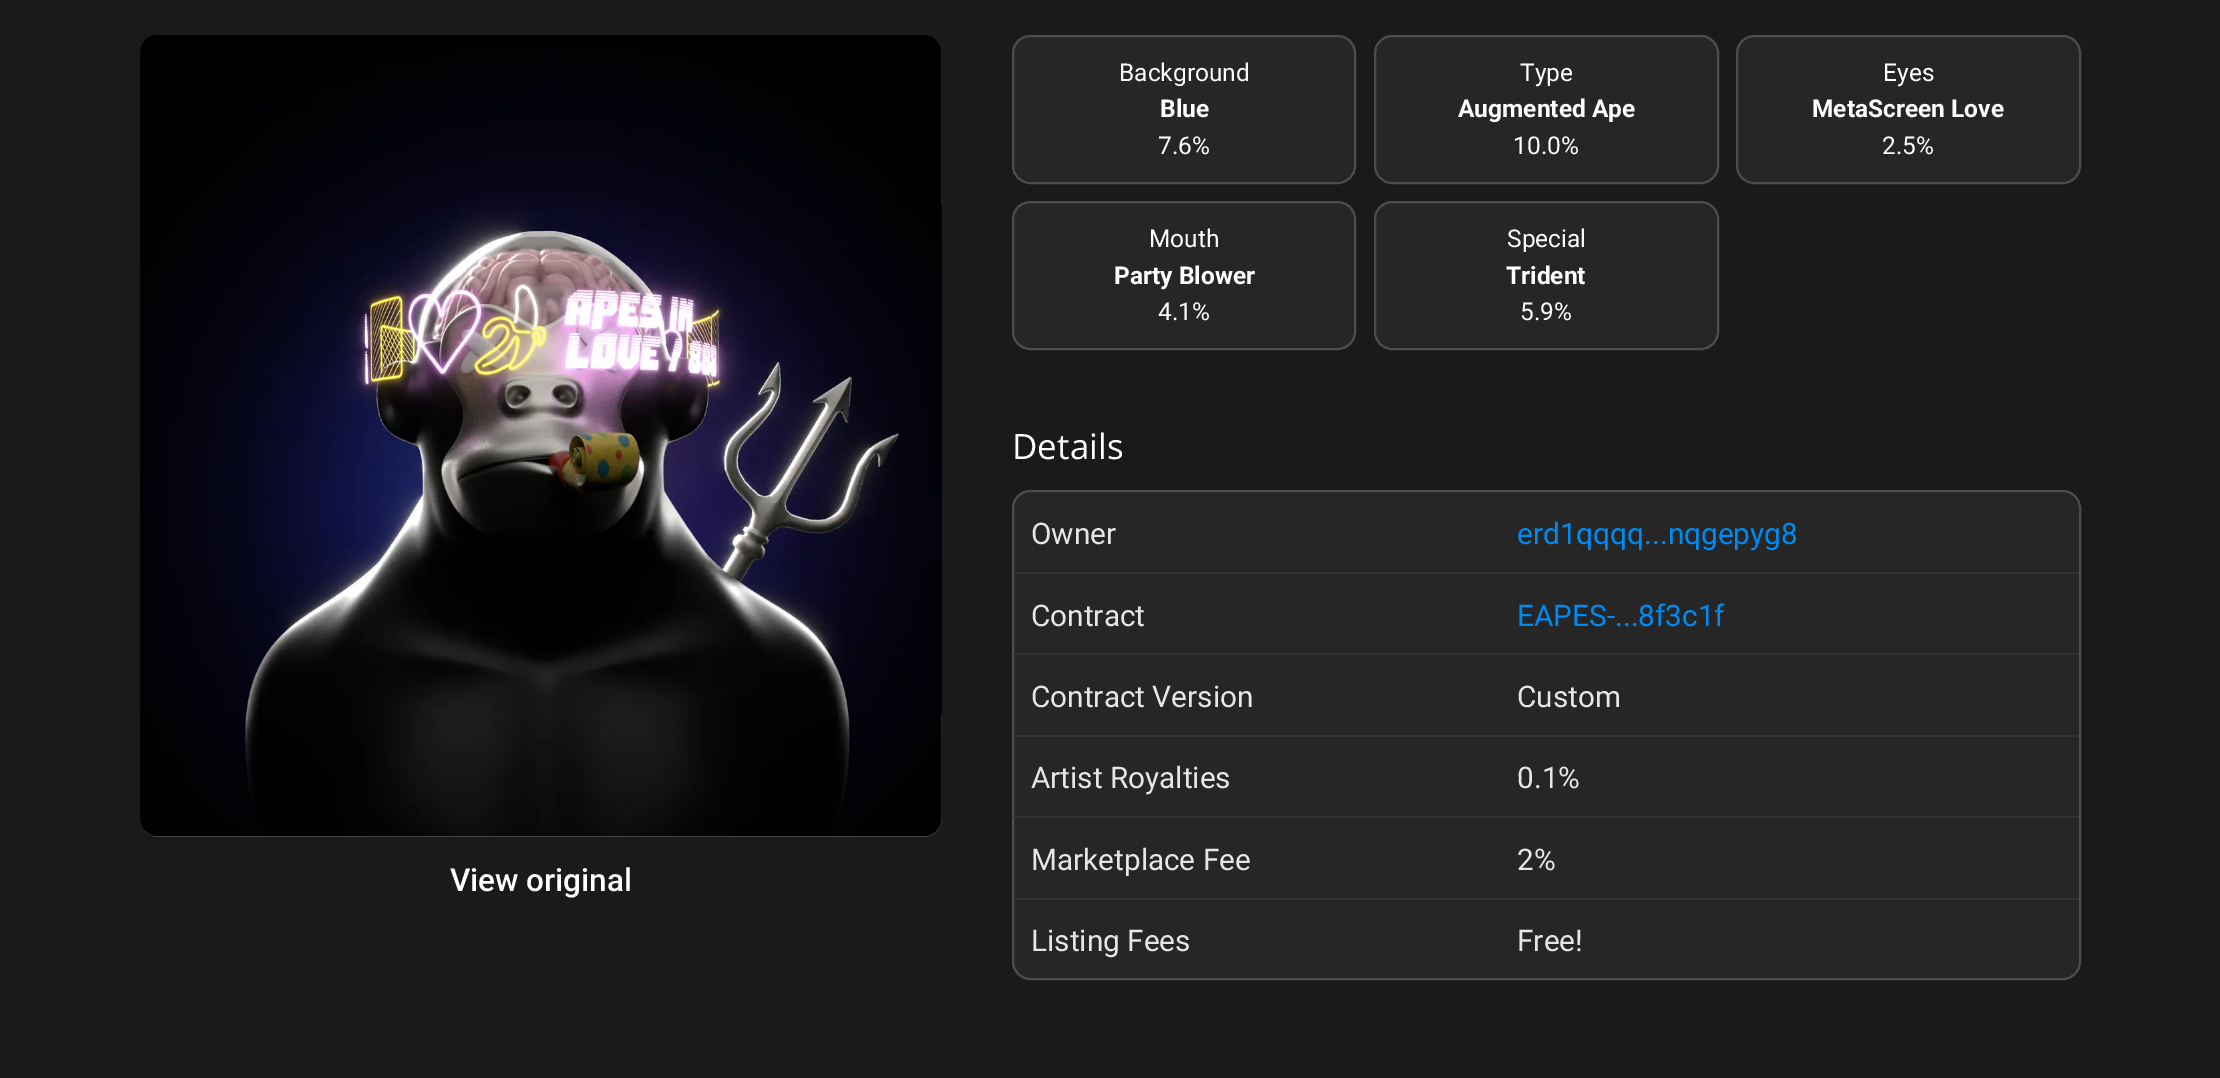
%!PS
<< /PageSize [2220 1078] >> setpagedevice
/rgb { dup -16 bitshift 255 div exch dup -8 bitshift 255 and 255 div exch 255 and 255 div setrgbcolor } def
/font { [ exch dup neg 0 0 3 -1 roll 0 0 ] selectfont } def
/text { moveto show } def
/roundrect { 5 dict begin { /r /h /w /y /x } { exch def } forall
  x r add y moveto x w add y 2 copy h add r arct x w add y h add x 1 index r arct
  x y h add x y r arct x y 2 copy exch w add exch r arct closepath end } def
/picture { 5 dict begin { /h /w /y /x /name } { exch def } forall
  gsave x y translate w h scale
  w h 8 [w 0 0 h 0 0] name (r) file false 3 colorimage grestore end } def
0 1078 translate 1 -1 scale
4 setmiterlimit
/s1 { /Roboto-Medium 31.5 font 16#FFFFFF rgb } def
/s2 { /Roboto-Regular 24.5 font 16#FFFFFF rgb } def
/s3 { /Roboto-Bold 24.5 font 16#FFFFFF rgb } def
/s4 { /OpenSans-Regular 35 font 16#FFFFFF rgb } def
/s5 { /Roboto-Regular 29.75 font 16#E6E6E6 rgb } def
/s6 { /Roboto-Regular 29.75 font 16#008BF3 rgb } def
16#1A1A1A rgb
0 0 2220 1078 rectfill
16#444444 rgb
140 35 802 802 18 roundrect fill
(pic1.raw) 140 35 802 801 picture
s1
(View original) 450 891 text
16#262626 rgb
1013 36 342 147 17 roundrect gsave fill grestore
16#4D4D4D rgb
2 setlinewidth
stroke
s2
(Background) 1119 81 text
s3
(Blue) 1160 117 text
s2
(7.6%) 1158 154 text
16#262626 rgb
1375 36 343 147 17 roundrect gsave fill grestore
16#4D4D4D rgb
stroke
s2
(Type) 1520 81 text
s3
(Augmented Ape) 1458 117 text
s2
(10.0%) 1513 154 text
16#262626 rgb
1737 36 343 147 17 roundrect gsave fill grestore
16#4D4D4D rgb
stroke
s2
(Eyes) 1883 81 text
s3
(MetaScreen Love) 1812 117 text
s2
(2.5%) 1882 154 text
16#262626 rgb
1013 202 342 147 17 roundrect gsave fill grestore
16#4D4D4D rgb
stroke
s2
(Mouth) 1149 247 text
s3
(Party Blower) 1114 284 text
s2
(4.1%) 1158 320 text
16#262626 rgb
1375 202 343 147 17 roundrect gsave fill grestore
16#4D4D4D rgb
stroke
s2
(Special) 1507 247 text
s3
(Trident) 1506 284 text
s2
(5.9%) 1520 320 text
s4
(Details) 1012 459 text
16#262626 rgb
1013 491 1067 488 17 roundrect gsave fill grestore
16#4D4D4D rgb
stroke
16#333333 rgb
1013 572 1066 2 rectfill
s5
(Owner) 1031 544 text
s6
(erd1qqqq...nqgepyg8) 1517 544 text
16#333333 rgb
1013 653 1066 2 rectfill
s5
(Contract) 1031 626 text
s6
(EAPES-...8f3c1f) 1517 626 text
16#333333 rgb
1013 735 1066 2 rectfill
s5
(Contract Version) 1031 707 text
(Custom) 1517 707 text
16#333333 rgb
1013 816 1066 2 rectfill
s5
(Artist Royalties) 1031 788 text
(0.1%) 1517 788 text
16#333333 rgb
1013 898 1066 2 rectfill
s5
(Marketplace Fee) 1031 870 text
(2%) 1517 870 text
(Listing Fees) 1031 951 text
(Free!) 1517 951 text
showpage
